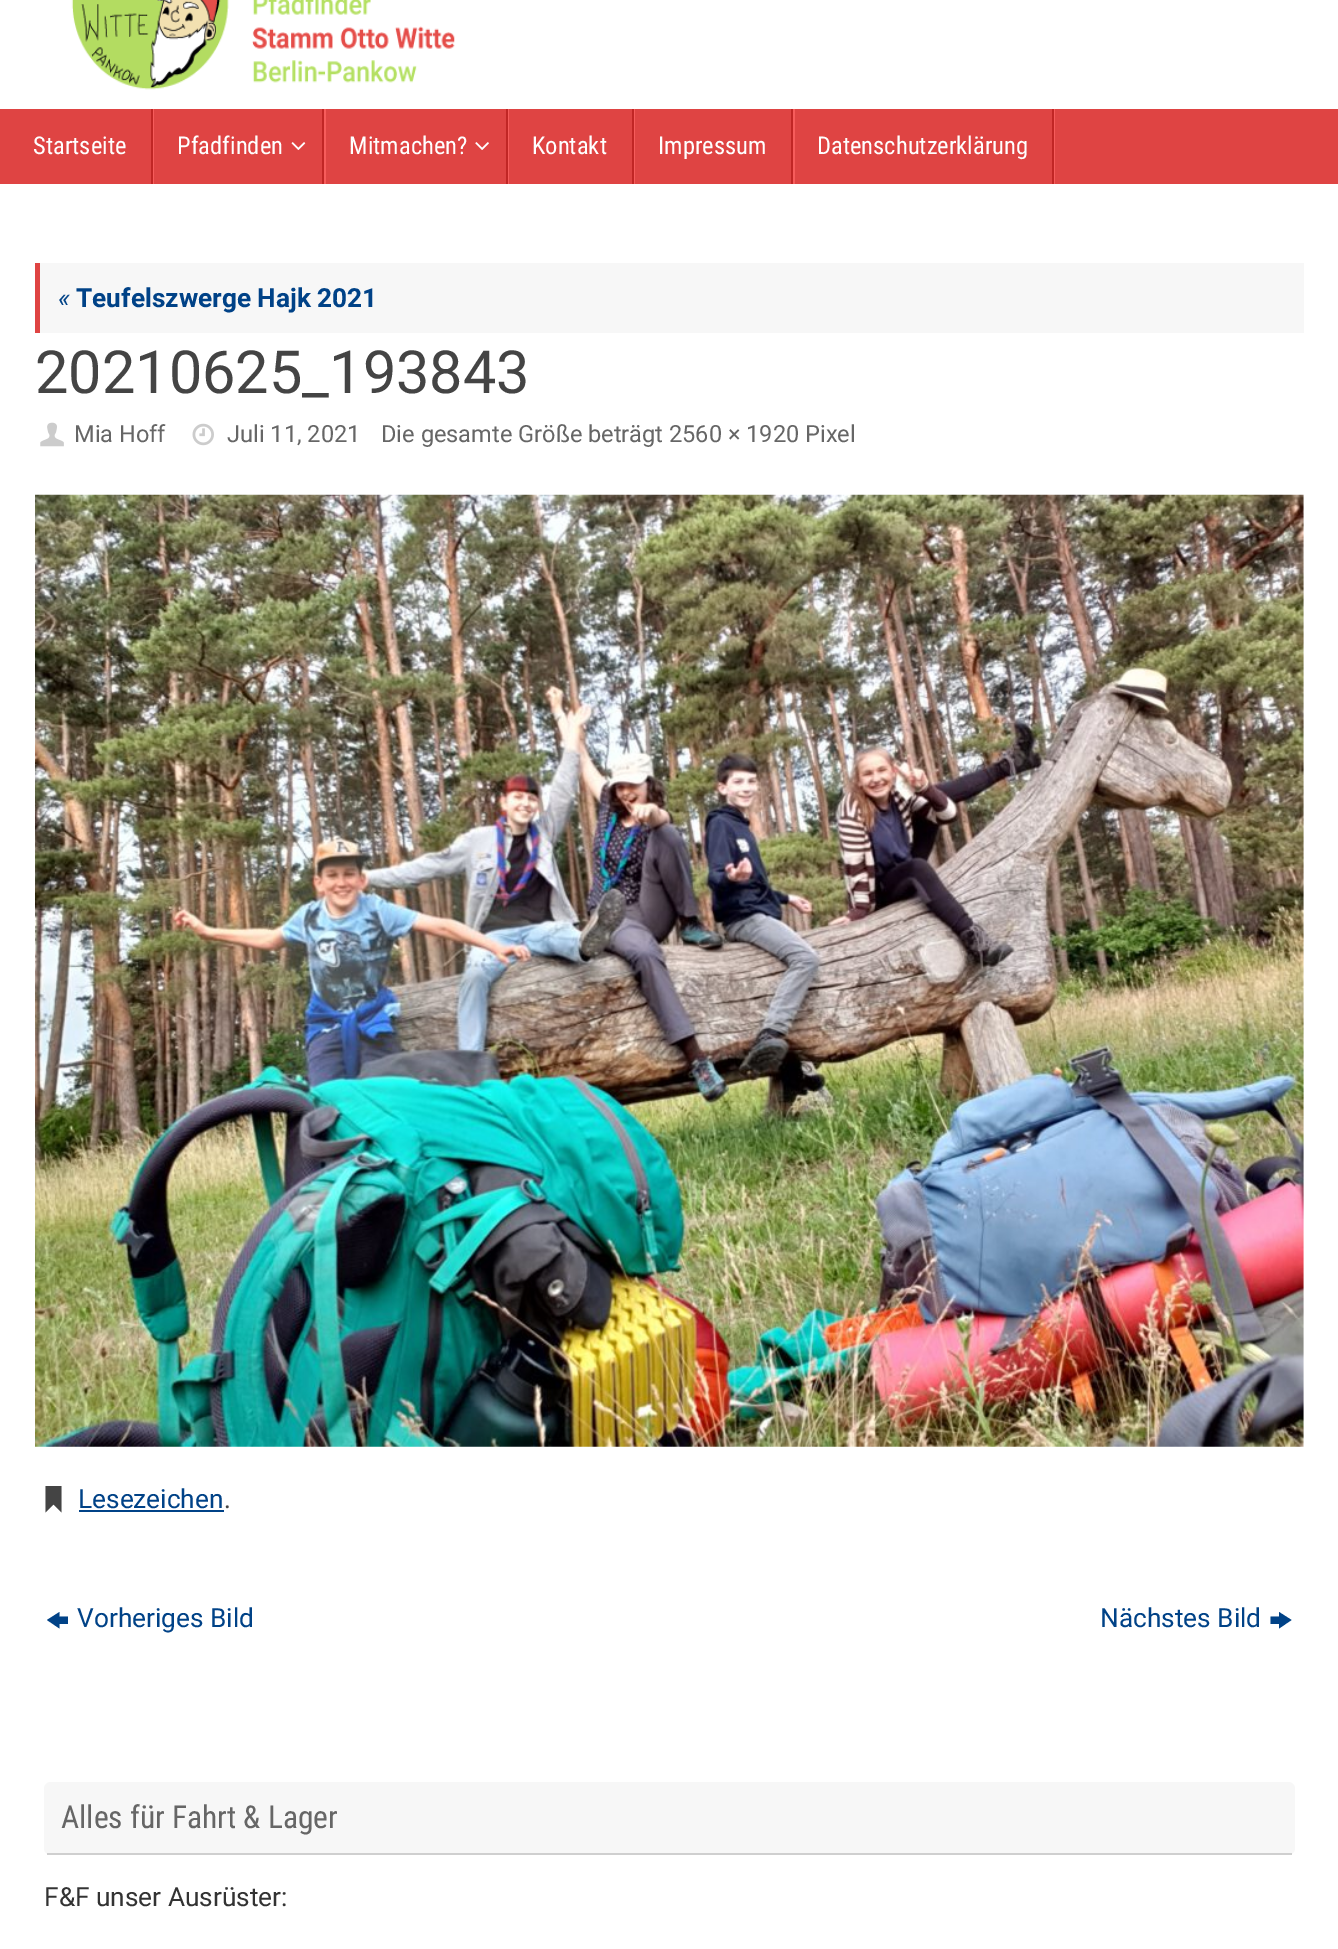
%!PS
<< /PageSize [1338 1949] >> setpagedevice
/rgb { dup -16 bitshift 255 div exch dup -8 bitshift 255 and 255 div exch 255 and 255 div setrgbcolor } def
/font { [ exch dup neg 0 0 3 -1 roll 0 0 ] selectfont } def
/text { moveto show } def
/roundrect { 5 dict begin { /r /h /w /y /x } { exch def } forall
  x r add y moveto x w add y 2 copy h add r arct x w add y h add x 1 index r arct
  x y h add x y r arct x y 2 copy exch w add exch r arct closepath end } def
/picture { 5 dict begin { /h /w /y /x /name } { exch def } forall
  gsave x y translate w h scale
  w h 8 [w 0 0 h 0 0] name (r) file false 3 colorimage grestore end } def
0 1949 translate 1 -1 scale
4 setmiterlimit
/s1 { /RobotoCondensed-Regular 24.5 font 16#FFFFFF rgb } def
/s2 { /Roboto-Italic 26.25 font 16#004287 rgb } def
/s3 { /Roboto-Bold 26.25 font 16#004287 rgb } def
/s4 { /Roboto-Regular 59.5 font 16#444444 rgb } def
/s5 { /Roboto-Regular 23.6 font 16#666666 rgb } def
/s6 { /Roboto-Regular 26.25 font 16#004287 rgb } def
/s7 { /Roboto-Regular 26.25 font 16#444444 rgb } def
/s8 { /RobotoCondensed-Regular 31.5 font 16#666666 rgb } def
/s9 { /Roboto-Regular 26.25 font 16#333333 rgb } def
16#FFFFFF rgb
0 0 1338 1949 rectfill
(pic1.raw) 71 0 384 90 picture
16#DF4443 rgb
0 109 1338 75 rectfill
16#F75C5B rgb
11 184 moveto 154 184 lineto 154 109 lineto 152 109 lineto 152 184 lineto closepath fill
16#C12625 rgb
151 109 2 75 rectfill
s1
(Startseite) 33 154 text
16#F75C5B rgb
154 184 moveto 326 184 lineto 326 109 lineto 324 109 lineto 324 184 lineto closepath fill
16#C12625 rgb
322 109 2 75 rectfill
s1
(Pfadfinden) 177 154 text
(pic2.raw) 291 142 15 8 picture
16#F75C5B rgb
326 184 moveto 509 184 lineto 509 109 lineto 508 109 lineto 508 184 lineto closepath fill
16#C12625 rgb
506 109 2 75 rectfill
s1
(Mitmachen?) 349 154 text
(pic3.raw) 475 142 14 8 picture
16#F75C5B rgb
509 184 moveto 635 184 lineto 635 109 lineto 634 109 lineto 634 184 lineto closepath fill
16#C12625 rgb
632 109 2 75 rectfill
s1
(Kontakt) 532 154 text
16#F75C5B rgb
635 184 moveto 795 184 lineto 795 109 lineto 793 109 lineto 793 184 lineto closepath fill
16#C12625 rgb
791 109 2 75 rectfill
s1
(Impressum) 658 154 text
16#F75C5B rgb
795 184 moveto 1055 184 lineto 1055 109 lineto 1054 109 lineto 1054 184 lineto closepath fill
16#C12625 rgb
1052 109 2 75 rectfill
s1
(Datenschutzerklärung) 817 154 text
16#F7F7F7 rgb
40 263 1264 70 rectfill
16#DF4443 rgb
35 263 5 70 rectfill
s2
(«) 58 307 text
s3
(Teufelszwerge Hajk 2021) 76 307 text
s4
(20210625_193843) 35 393 text
(pic4.raw) 40 422 24 25 picture
s5
(Mia Hoff) 74 442 text
(pic5.raw) 192 423 22 23 picture
(Juli 11, 2021) 227 442 text
(Die gesamte Größe beträgt 2560 × 1920 Pixel) 381 442 text
(pic6.raw) 35 494 1269 953 picture
16#444444 rgb
45.5 1510 moveto 45.5 1486 lineto 61.5 1486 lineto 61.5 1512.5 lineto 53.5 1504.5 lineto 45.5 1512.5 lineto closepath fill
s6
(Lesezeichen) 78 1508 text
79 1510 145 2 rectfill
s7
(.) 224 1508 text
16#004287 rgb
47 1620 moveto 59.5 1612 lineto 59.5 1616.5 lineto 68 1616.5 lineto 68 1624 lineto 59.5 1624 lineto 59.5 1628.5 lineto closepath fill
(Vorheriges Bild) 77 1627 text
(Nächstes Bild) 1100 1627 text
1270.5 1624 moveto 1270.5 1616.5 lineto 1279 1616.5 lineto 1279 1612 lineto 1291.5 1620 lineto 1279 1628.5 lineto 1279 1624 lineto closepath fill
16#F7F7F7 rgb
44 1782 1251 73 7 roundrect fill
16#CFCFCF rgb
47 1853 1245 2 rectfill
s8
(Alles für Fahrt & Lager) 61 1828 text
s9
(F&F unser Ausrüster:) 44 1906 text
showpage
